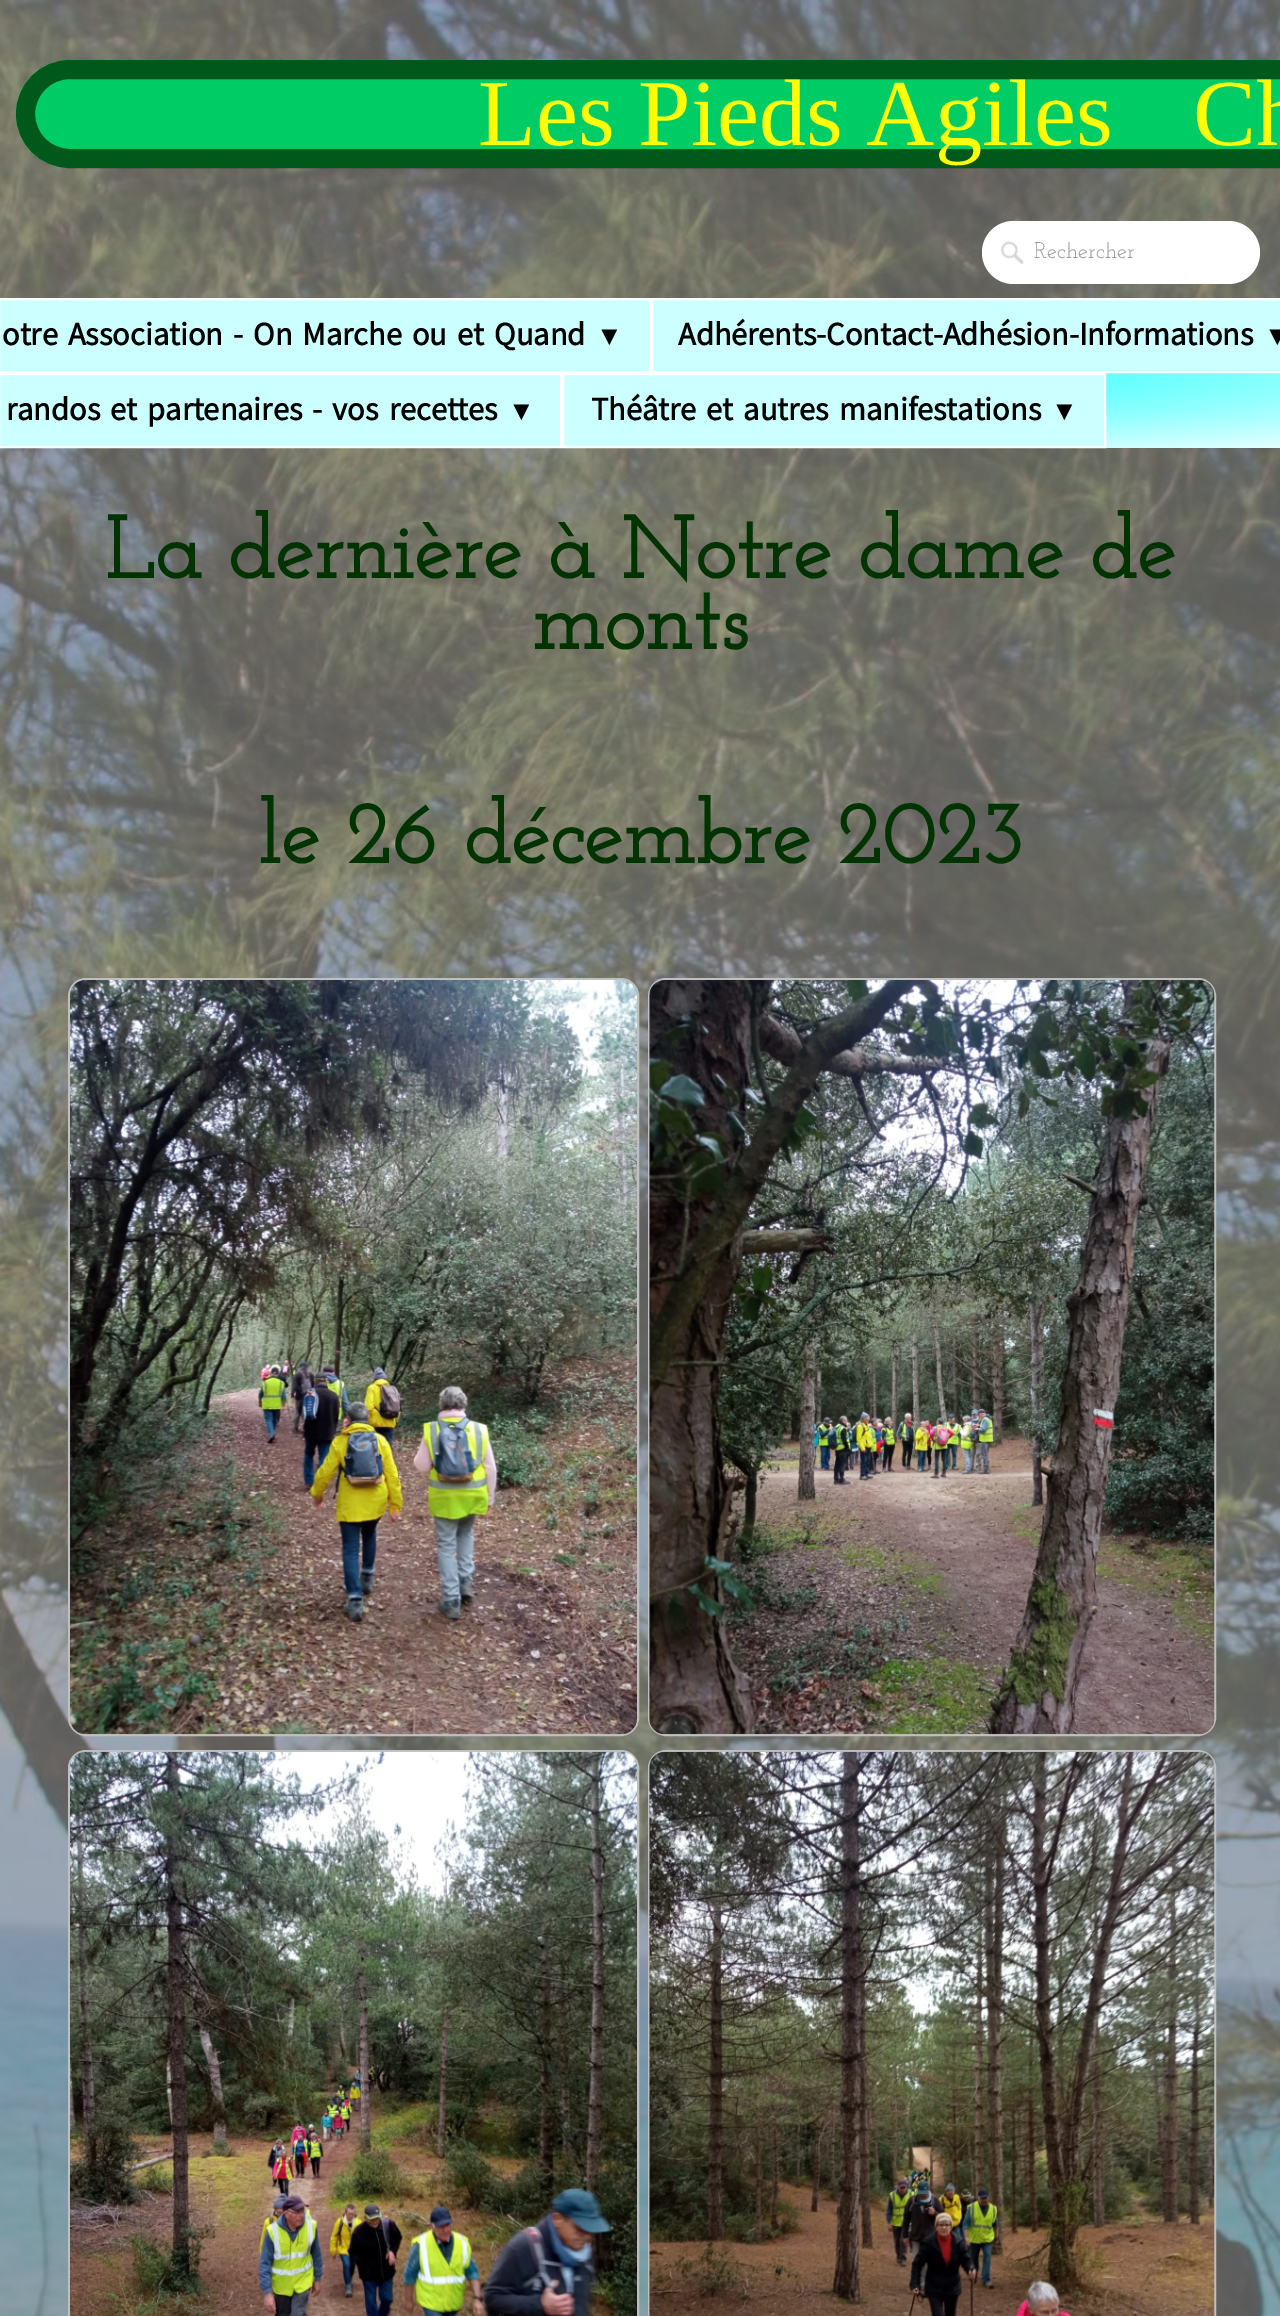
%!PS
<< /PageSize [1280 2316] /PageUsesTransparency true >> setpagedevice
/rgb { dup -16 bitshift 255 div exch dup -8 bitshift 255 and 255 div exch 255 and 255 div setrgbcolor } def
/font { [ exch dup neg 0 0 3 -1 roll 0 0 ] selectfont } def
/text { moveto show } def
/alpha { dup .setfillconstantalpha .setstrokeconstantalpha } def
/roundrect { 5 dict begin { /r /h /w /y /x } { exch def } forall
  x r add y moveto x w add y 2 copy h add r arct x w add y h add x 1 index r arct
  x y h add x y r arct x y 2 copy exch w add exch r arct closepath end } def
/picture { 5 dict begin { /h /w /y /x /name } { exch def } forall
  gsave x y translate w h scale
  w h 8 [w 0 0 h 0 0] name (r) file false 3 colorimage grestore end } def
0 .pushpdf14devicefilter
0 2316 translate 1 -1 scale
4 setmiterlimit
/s1 { /LiberationSerif-Regular 94.5 font 16#FFFF0A rgb } def
/s2 { /JosefinSlab-Thin 22.75 font 16#999999 rgb } def
/s3 { /Akatab-Bold 31.5 font 16#000000 rgb } def
/s4 { /LiberationSerif-Bold 27 font 16#000000 rgb } def
/s5 { /JosefinSlab-Bold 87.5 font 16#003300 rgb } def
16#FFFFFF rgb
0 0 1280 2316 rectfill
(pic1.raw) 0 0 1280 2316 picture
16#00CC66 rgb
70 60 moveto 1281 60 lineto 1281 168 lineto 70 168 lineto 40 168 16 144 16 114 curveto 16 84 40 60 70 60 curveto closepath fill
0.75 alpha
16#003300 rgb
19 setlinewidth
25.5 69.5 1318 89 44.5 roundrect stroke
1 alpha
s1
(Les Pieds Agiles) 478 145 text
(Ch) 1193 145 text
16#FFFFFF rgb
982 221 278 63 31.5 roundrect fill
(pic2.raw) 1001 241 23 24 picture
gsave
1034 242 219 22 rectclip
s2
(Rechercher) 1034 258 text
grestore
gsave 1106 373 moveto 1280 373 lineto 1280 448 lineto 1106 448 lineto closepath clip newpath 641 373 translate 1188 106 scale
<< /ShadingType 3 /ColorSpace /DeviceRGB /Coords [0 0 0 0 0 1] /Extend [true true] /Function << /FunctionType 2 /Domain [0 1] /C0 [0 1 1] /C1 [1 1 1] /N 1 >> >> shfill grestore
16#CCFFFF rgb
-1 299 moveto 650 299 lineto 650 372 lineto -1 372 lineto closepath gsave fill grestore
16#FFFFFF rgb
2 setlinewidth
stroke
s3
(otre Association - On Marche ou et Quand) 2 345 text
s4
(▼) 596 345 text
16#CCFFFF rgb
652 299 moveto 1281 299 lineto 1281 372 lineto 652 372 lineto closepath gsave fill grestore
16#FFFFFF rgb
stroke
s3
(Adhérents-Contact-Adhésion-Informations) 678 345 text
s4
(▼) 1264 345 text
16#CCFFFF rgb
-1 374 moveto 561 374 lineto 561 447 lineto -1 447 lineto closepath gsave fill grestore
16#FFFFFF rgb
stroke
s3
(randos et partenaires - vos recettes) 6 420 text
s4
(▼) 508 420 text
16#CCFFFF rgb
563 374 moveto 1105 374 lineto 1105 447 lineto 563 447 lineto closepath gsave fill grestore
16#FFFFFF rgb
stroke
s3
(Théâtre et autres manifestations) 591 420 text
s4
(▼) 1051 420 text
s5
(La dernière à Notre dame de) 105 578 text
(monts) 532 649 text
(le 26 décembre 2023) 258 863 text
16#BFBFBF rgb
69 979 569 756 17 roundrect stroke
(pic3.raw) 70 980 567 755 picture
69 1751 569 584 17 roundrect stroke
(pic4.raw) 70 1751 567 565 picture
649 979 566 756 17 roundrect stroke
(pic5.raw) 649 980 566 755 picture
649 1751 566 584 17 roundrect stroke
(pic6.raw) 649 1751 566 565 picture
.poppdf14devicefilter showpage
